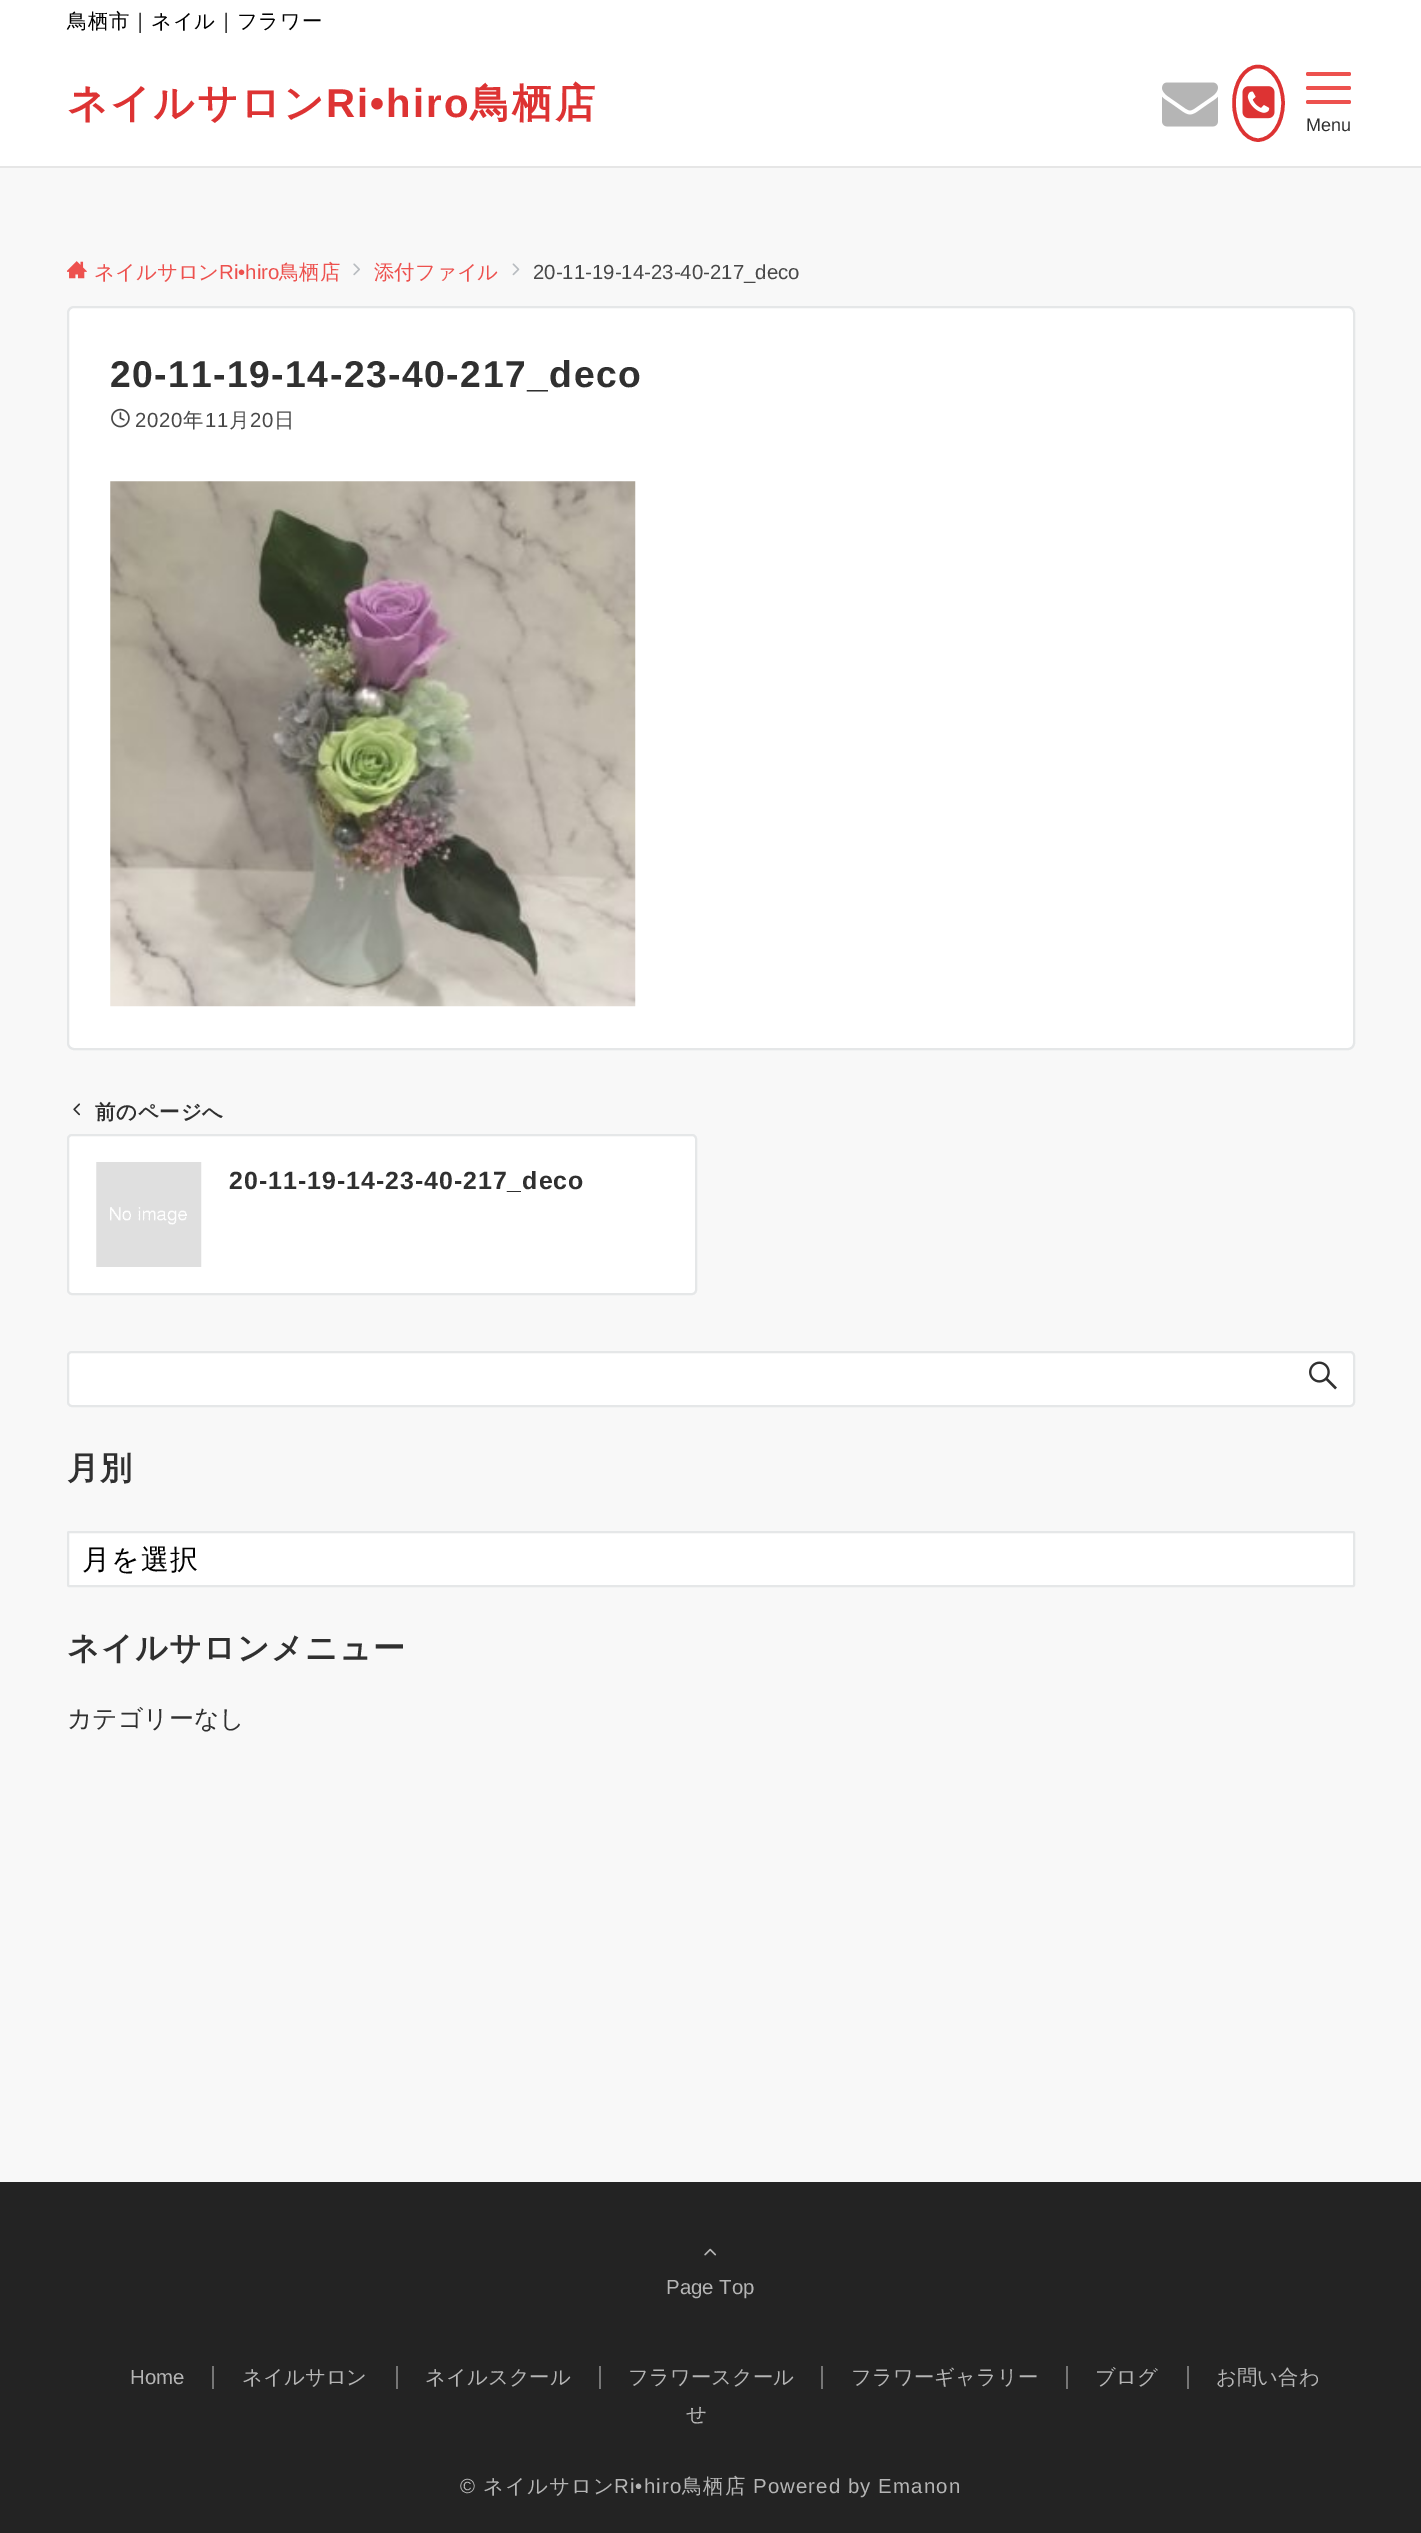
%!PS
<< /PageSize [1421 2533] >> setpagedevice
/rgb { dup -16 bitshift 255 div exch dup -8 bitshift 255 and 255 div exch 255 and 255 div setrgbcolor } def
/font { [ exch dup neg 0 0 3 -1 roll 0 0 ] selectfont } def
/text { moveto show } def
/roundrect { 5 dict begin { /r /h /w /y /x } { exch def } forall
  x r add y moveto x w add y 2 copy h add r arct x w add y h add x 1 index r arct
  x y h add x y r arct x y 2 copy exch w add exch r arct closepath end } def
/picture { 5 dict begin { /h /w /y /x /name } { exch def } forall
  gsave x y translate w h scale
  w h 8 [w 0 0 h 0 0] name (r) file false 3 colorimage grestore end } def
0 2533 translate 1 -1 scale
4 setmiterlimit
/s1 { /LiberationSans-Regular 18 font 16#303030 rgb } def
/s2 { /WenQuanYiZenHei-Medium 20.4 font 16#ED514E rgb } def
/s3 { /LiberationSans-Regular 20.4 font 16#ED514E rgb } def
/s4 { /LiberationSans-Regular 20.4 font 16#484848 rgb } def
/s5 { /WenQuanYiZenHei-Medium 24.9 font 16#303030 rgb } def
/s6 { /LiberationSans-Regular 20.4 font 16#B5B5B5 rgb } def
/s7 { /WenQuanYiZenHei-Medium 20.4 font 16#B5B5B5 rgb } def
16#F8F8F8 rgb
0 0 1421 2533 rectfill
16#FFFFFF rgb
0 0 1421 166 rectfill
/WenQuanYiZenHei-Medium 20.4 font
16#000000 rgb
67 28 moveto 0.75 0 (鳥栖市｜ネイル｜フラワー) ashow
16#E6E6E6 rgb
0 166 1421 2 rectfill
/WenQuanYiZenHei-Bold 40.25 font
16#DD3333 rgb
67 117 moveto 2 0 (ネイルサロン) ashow
/LiberationSans-Bold 40.25 font
326 117 moveto 2 0 (Ri•hiro) ashow
/WenQuanYiZenHei-Bold 40.25 font
470 117 moveto 2 0 (鳥栖店) ashow
(pic1.raw) 1162 82 56 45 picture
3.5 setlinewidth
1258 66.5 moveto 1272 66.5 1283 83 1283 103 curveto 1283 123.5 1272 140 1258 140 curveto 1244.5 140 1234 123.5 1234 103 curveto 1234 83 1244.5 66.5 1258 66.5 curveto closepath stroke
(pic2.raw) 1242 86 33 33 picture
16#ED514E rgb
1306 72 45 4 2 roundrect fill
1306 86 45 4 2 roundrect fill
1306 100 45 4 2 roundrect fill
s1
(Menu) 1306 131 text
(pic3.raw) 67 261 20 18 picture
s2
(ネイルサロン) 94 279 text
s3
(Ri•hiro) 219 279 text
s2
(鳥栖店) 279 279 text
(pic4.raw) 353 263 7 13 picture
(添付ファイル) 374 279 text
(pic5.raw) 512 263 8 13 picture
s4
(20-11-19-14-23-40-217_deco) 533 279 text
16#FFFFFF rgb
68 307 1286 742 6 roundrect gsave fill grestore
16#E5E7E8 rgb
2 setlinewidth
stroke
/LiberationSans-Bold 37.3 font
16#303030 rgb
110 387 moveto 1.5 0 (20-11-19-14-23-40-217_deco) ashow
(pic6.raw) 111 408 19 20 picture
/LiberationSans-Regular 20.4 font
16#484848 rgb
135 427 moveto 0.75 0 (2020) ashow
/WenQuanYiZenHei-Medium 20.4 font
183 427 moveto 0.75 0 (年) ashow
/LiberationSans-Regular 20.4 font
205 427 moveto 0.75 0 (11) ashow
/WenQuanYiZenHei-Medium 20.4 font
229 427 moveto 0.75 0 (月) ashow
/LiberationSans-Regular 20.4 font
250 427 moveto 0.75 0 (20) ashow
/WenQuanYiZenHei-Medium 20.4 font
274 427 moveto 0.75 0 (日) ashow
(pic7.raw) 110 481 526 526 picture
16#FFFFFF rgb
68 1135 628 159 4 roundrect gsave fill grestore
16#E5E7E8 rgb
stroke
(pic8.raw) 73 1103 7 13 picture
/WenQuanYiZenHei-Bold 20.4 font
16#303030 rgb
95 1119 moveto 0.75 0 (前のページへ) ashow
(pic9.raw) 96 1162 106 105 picture
/LiberationSans-Bold 24.9 font
229 1189 moveto 1 0 (20-11-19-14-23-40-217_deco) ashow
16#FFFFFF rgb
68 1352 1286 54 4 roundrect gsave fill grestore
16#E5E7E8 rgb
stroke
(pic10.raw) 1309 1361 28 29 picture
/WenQuanYiZenHei-Bold 32 font
16#303030 rgb
67 1479 moveto 1.25 0 (月別) ashow
16#FFFFFF rgb
68 1532 1286 54 1 roundrect gsave fill grestore
16#E5E7E8 rgb
stroke
/WenQuanYiZenHei-Medium 28 font
16#000000 rgb
82 1569 moveto 1.1 0 (月を選択) ashow
/WenQuanYiZenHei-Bold 32 font
16#303030 rgb
67 1659 moveto 1.25 0 (ネイルサロンメニュー) ashow
s5
(カテゴリーなし) 67 1727 text
16#232323 rgb
0 2182 1421 351 rectfill
(pic11.raw) 704 2248 13 8 picture
s6
(Page Top) 666 2294 text
(Home) 130 2384 text
16#757575 rgb
212 2366 2 23 rectfill
s7
(ネイルサロン) 242 2384 text
16#757575 rgb
396 2366 2 23 rectfill
s7
(ネイルスクール) 425 2384 text
16#757575 rgb
599 2366 2 23 rectfill
s7
(フラワースクール) 628 2384 text
16#757575 rgb
821 2366 2 23 rectfill
s7
(フラワーギャラリー) 851 2384 text
16#757575 rgb
1066 2366 2 23 rectfill
s7
(ブログ) 1095 2384 text
16#757575 rgb
1187 2366 2 23 rectfill
s7
(お問い合わ) 1216 2384 text
(せ) 686 2421 text
/LiberationSans-Regular 20.4 font
460 2493 moveto 1.1 0 (©) ashow
/WenQuanYiZenHei-Medium 20.4 font
483 2493 moveto 1.1 0 (ネイルサロン) ashow
/LiberationSans-Regular 20.4 font
614 2493 moveto 1.1 0 (Ri•hiro) ashow
/WenQuanYiZenHei-Medium 20.4 font
682 2493 moveto 1.1 0 (鳥栖店) ashow
/LiberationSans-Regular 20.4 font
753 2493 moveto 1.1 0 (Powered by Emanon) ashow
showpage
